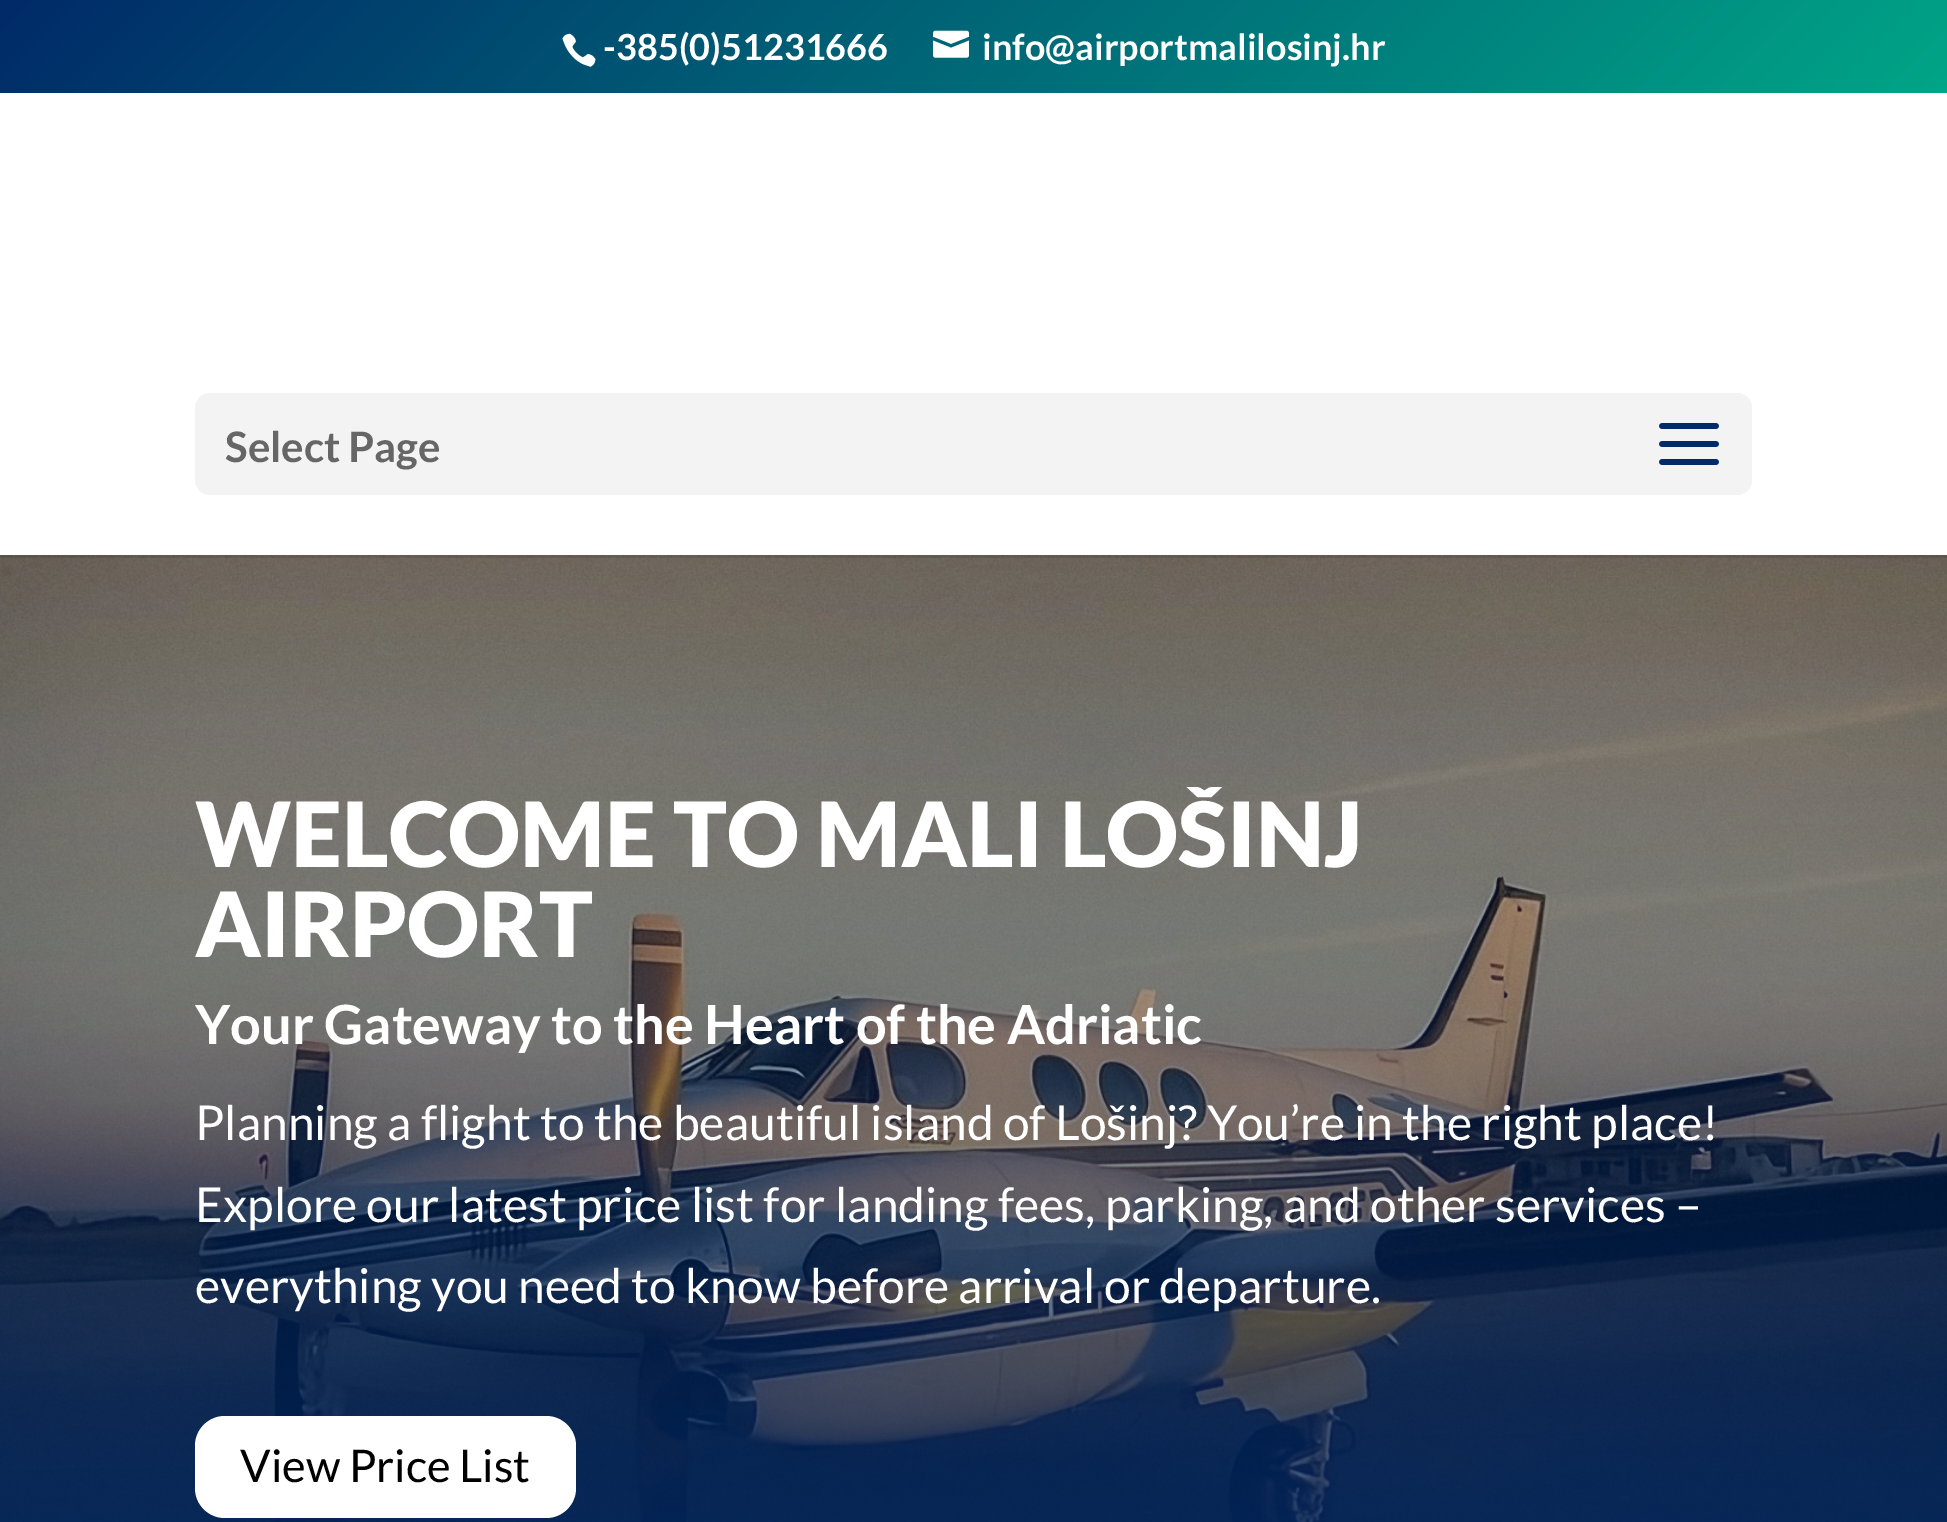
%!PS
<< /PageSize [1947 1522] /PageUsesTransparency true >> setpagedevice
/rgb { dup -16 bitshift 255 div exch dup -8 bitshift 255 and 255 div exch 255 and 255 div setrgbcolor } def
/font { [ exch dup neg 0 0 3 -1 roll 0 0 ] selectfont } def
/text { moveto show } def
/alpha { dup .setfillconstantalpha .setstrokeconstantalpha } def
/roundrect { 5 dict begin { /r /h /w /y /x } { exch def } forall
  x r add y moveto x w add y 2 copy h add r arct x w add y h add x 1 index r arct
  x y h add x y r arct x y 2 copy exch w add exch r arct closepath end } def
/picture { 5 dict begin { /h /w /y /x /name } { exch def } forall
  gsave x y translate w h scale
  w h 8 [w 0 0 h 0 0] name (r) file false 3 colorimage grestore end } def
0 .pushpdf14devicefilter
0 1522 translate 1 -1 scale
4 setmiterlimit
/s1 { /Lato-Bold 36 font 16#FFFFFF rgb } def
/s2 { /Lato-Bold 42 font 16#666666 rgb } def
/s3 { /Lato-Black 90 font 16#FFFFFF rgb } def
/s4 { /Lato-Bold 54 font 16#FFFFFF rgb } def
/s5 { /Lato-Regular 48 font 16#FFFFFF rgb } def
/s6 { /Lato-Regular 45 font 16#000000 rgb } def
16#FFFFFF rgb
0 0 1947 1522 rectfill
gsave 0 0 moveto 1947 0 lineto 1947 93 lineto 0 93 lineto closepath clip newpath
<< /ShadingType 2 /ColorSpace /DeviceRGB /Coords [463 -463 1484 557] /Extend [true true] /Function << /FunctionType 2 /Domain [0 1] /C0 [0 0.165 0.408] /C1 [0 0.647 0.529] /N 1 >> >> shfill grestore
(pic1.raw) 562 33 34 34 picture
s1
(-385\(0\)51231666) 603 60 text
(pic2.raw) 933 30 36 28 picture
(info@airportmalilosinj.hr) 982 60 text
(pic4.raw) 0 555 1947 967 picture
0.1 alpha
16#000000 rgb
0 555 1947 3 rectfill
1 alpha
16#F3F3F3 rgb
195 393 1557 102 15 roundrect fill
s2
(Select Page) 225 462 text
(pic3.raw) 1659 423 60 42 picture
s3
(WELCOME TO MALI LOŠINJ) 195 867 text
(AIRPORT) 195 957 text
s4
(Your Gateway to the Heart of the Adriatic) 195 1044 text
s5
(Planning a flight to the beautiful island of Lošinj? You’re in the right place!) 195 1140 text
(Explore our latest price list for landing fees, parking, and other services –) 195 1222 text
(everything you need to know before arrival or departure.) 195 1303 text
195 1416 381 102 30 roundrect fill
s6
(View Price List) 240 1482 text
.poppdf14devicefilter showpage
